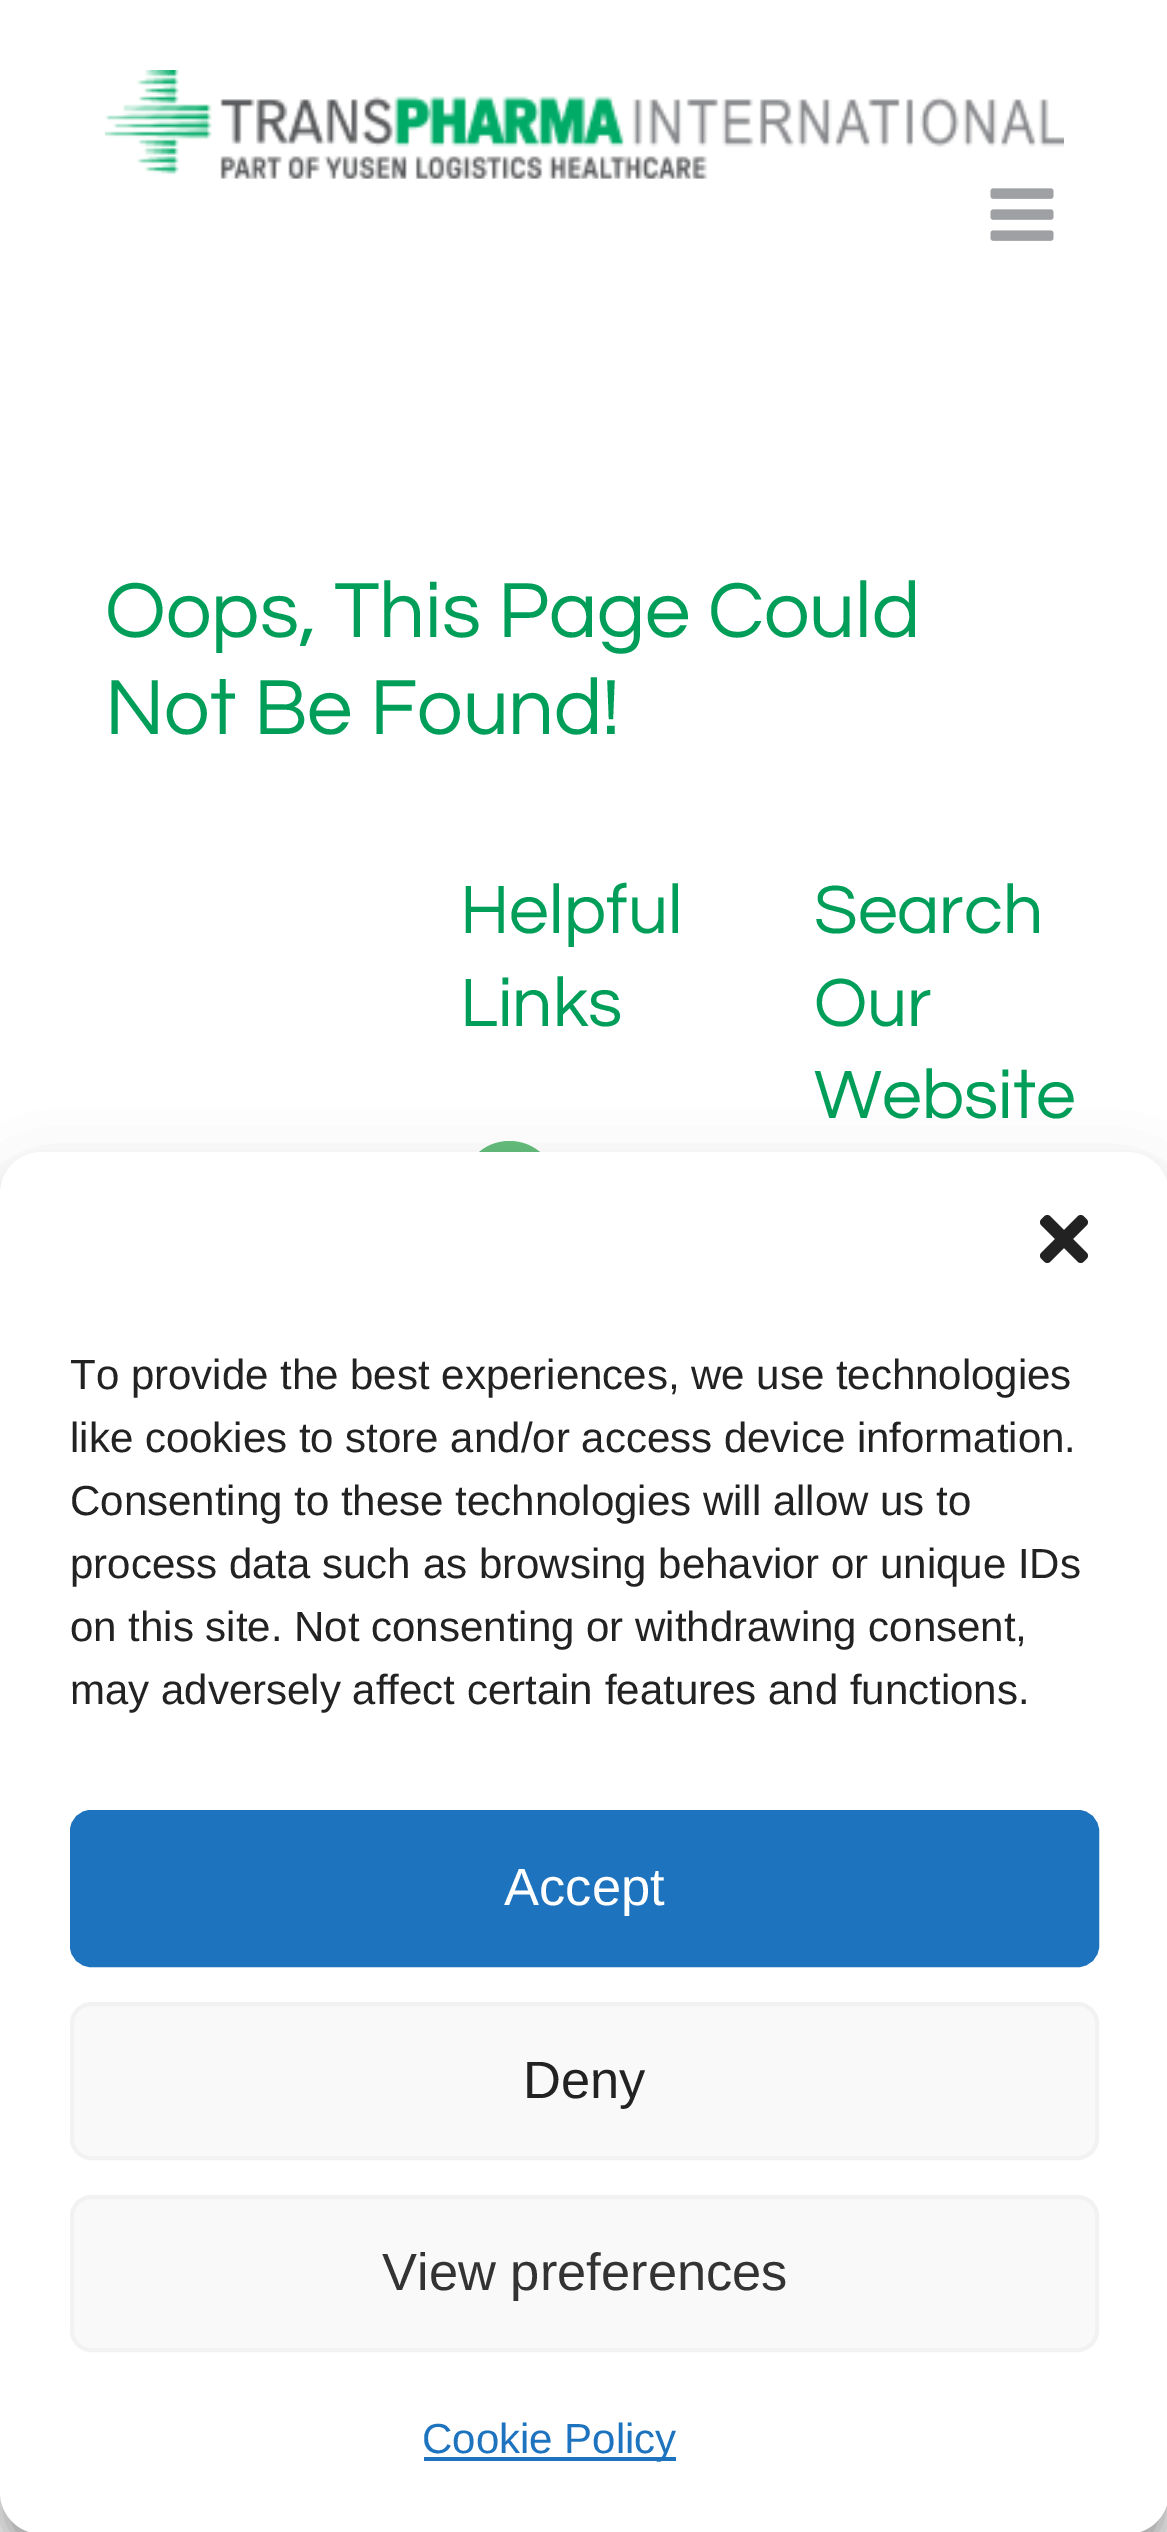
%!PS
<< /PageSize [1167 2532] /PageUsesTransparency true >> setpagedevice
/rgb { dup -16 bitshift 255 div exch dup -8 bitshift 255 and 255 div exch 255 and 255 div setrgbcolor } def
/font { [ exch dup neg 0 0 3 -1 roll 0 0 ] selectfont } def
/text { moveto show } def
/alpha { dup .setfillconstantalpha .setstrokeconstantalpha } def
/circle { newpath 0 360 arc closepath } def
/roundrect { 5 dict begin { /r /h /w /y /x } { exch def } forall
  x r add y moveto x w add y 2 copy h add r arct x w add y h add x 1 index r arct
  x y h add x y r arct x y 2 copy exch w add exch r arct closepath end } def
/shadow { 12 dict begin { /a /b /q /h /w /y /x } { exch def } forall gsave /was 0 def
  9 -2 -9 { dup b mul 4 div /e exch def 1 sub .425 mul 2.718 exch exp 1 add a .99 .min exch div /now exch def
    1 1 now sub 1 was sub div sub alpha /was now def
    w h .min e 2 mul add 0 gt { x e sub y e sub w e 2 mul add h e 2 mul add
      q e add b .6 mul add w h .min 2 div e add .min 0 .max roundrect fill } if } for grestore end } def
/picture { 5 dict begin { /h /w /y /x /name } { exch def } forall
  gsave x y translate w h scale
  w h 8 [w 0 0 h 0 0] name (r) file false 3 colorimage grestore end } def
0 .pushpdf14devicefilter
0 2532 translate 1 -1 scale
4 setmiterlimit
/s1 { /Questrial-Regular 81 font 16#009E59 rgb } def
/s2 { /Questrial-Regular 71 font 16#009E59 rgb } def
/s3 { /LiberationSans-Regular 42 font 16#222222 rgb } def
/s4 { /LiberationSans-Regular 52.5 font 16#FFFFFF rgb } def
/s5 { /LiberationSans-Regular 52.5 font 16#222222 rgb } def
/s6 { /LiberationSans-Regular 52.5 font 16#333333 rgb } def
/s7 { /LiberationSans-Regular 42 font 16#1E73BE rgb } def
16#FFFFFF rgb
0 0 1167 2532 rectfill
(pic1.raw) 105 70 959 109 picture
(pic2.raw) 990 188 64 53 picture
s1
(Oops, This Page Could) 105 637 text
(Not Be Found!) 105 734 text
s2
(Helpful) 460 933 text
(Links) 460 1026 text
16#65BC7B rgb
509.5 1188.5 47.5 circle fill
s2
(Search) 814 933 text
(Our) 814 1026 text
(Website) 814 1118 text
16#000000 rgb
0 1173 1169 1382 42 10.5 0.23 shadow
0 1187 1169 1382 42 35 0.19 shadow
16#FFFFFF rgb
0 1152 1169 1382 42 roundrect fill
(pic3.raw) 1039 1214 50 50 picture
s3
(To provide the best experiences, we use technologies) 70 1389 text
(like cookies to store and/or access device information.) 70 1452 text
(Consenting to these technologies will allow us to) 70 1515 text
(process data such as browsing behavior or unique IDs) 70 1578 text
(on this site. Not consenting or withdrawing consent,) 70 1641 text
(may adversely affect certain features and functions.) 70 1704 text
16#1E73BE rgb
72 1812 1025 153 19 roundrect gsave fill grestore
4 setlinewidth
stroke
s4
(Accept) 504 1905 text
16#F9F9F9 rgb
72 2004 1025 154 19 roundrect gsave fill grestore
16#F2F2F2 rgb
stroke
s5
(Deny) 523 2098 text
16#F9F9F9 rgb
72 2197 1025 153 19 roundrect gsave fill grestore
16#F2F2F2 rgb
stroke
s6
(View preferences) 382 2290 text
16#1E73BE rgb
424 2457 252 4 rectfill
s7
(Cookie Policy) 422 2453 text
.poppdf14devicefilter showpage
